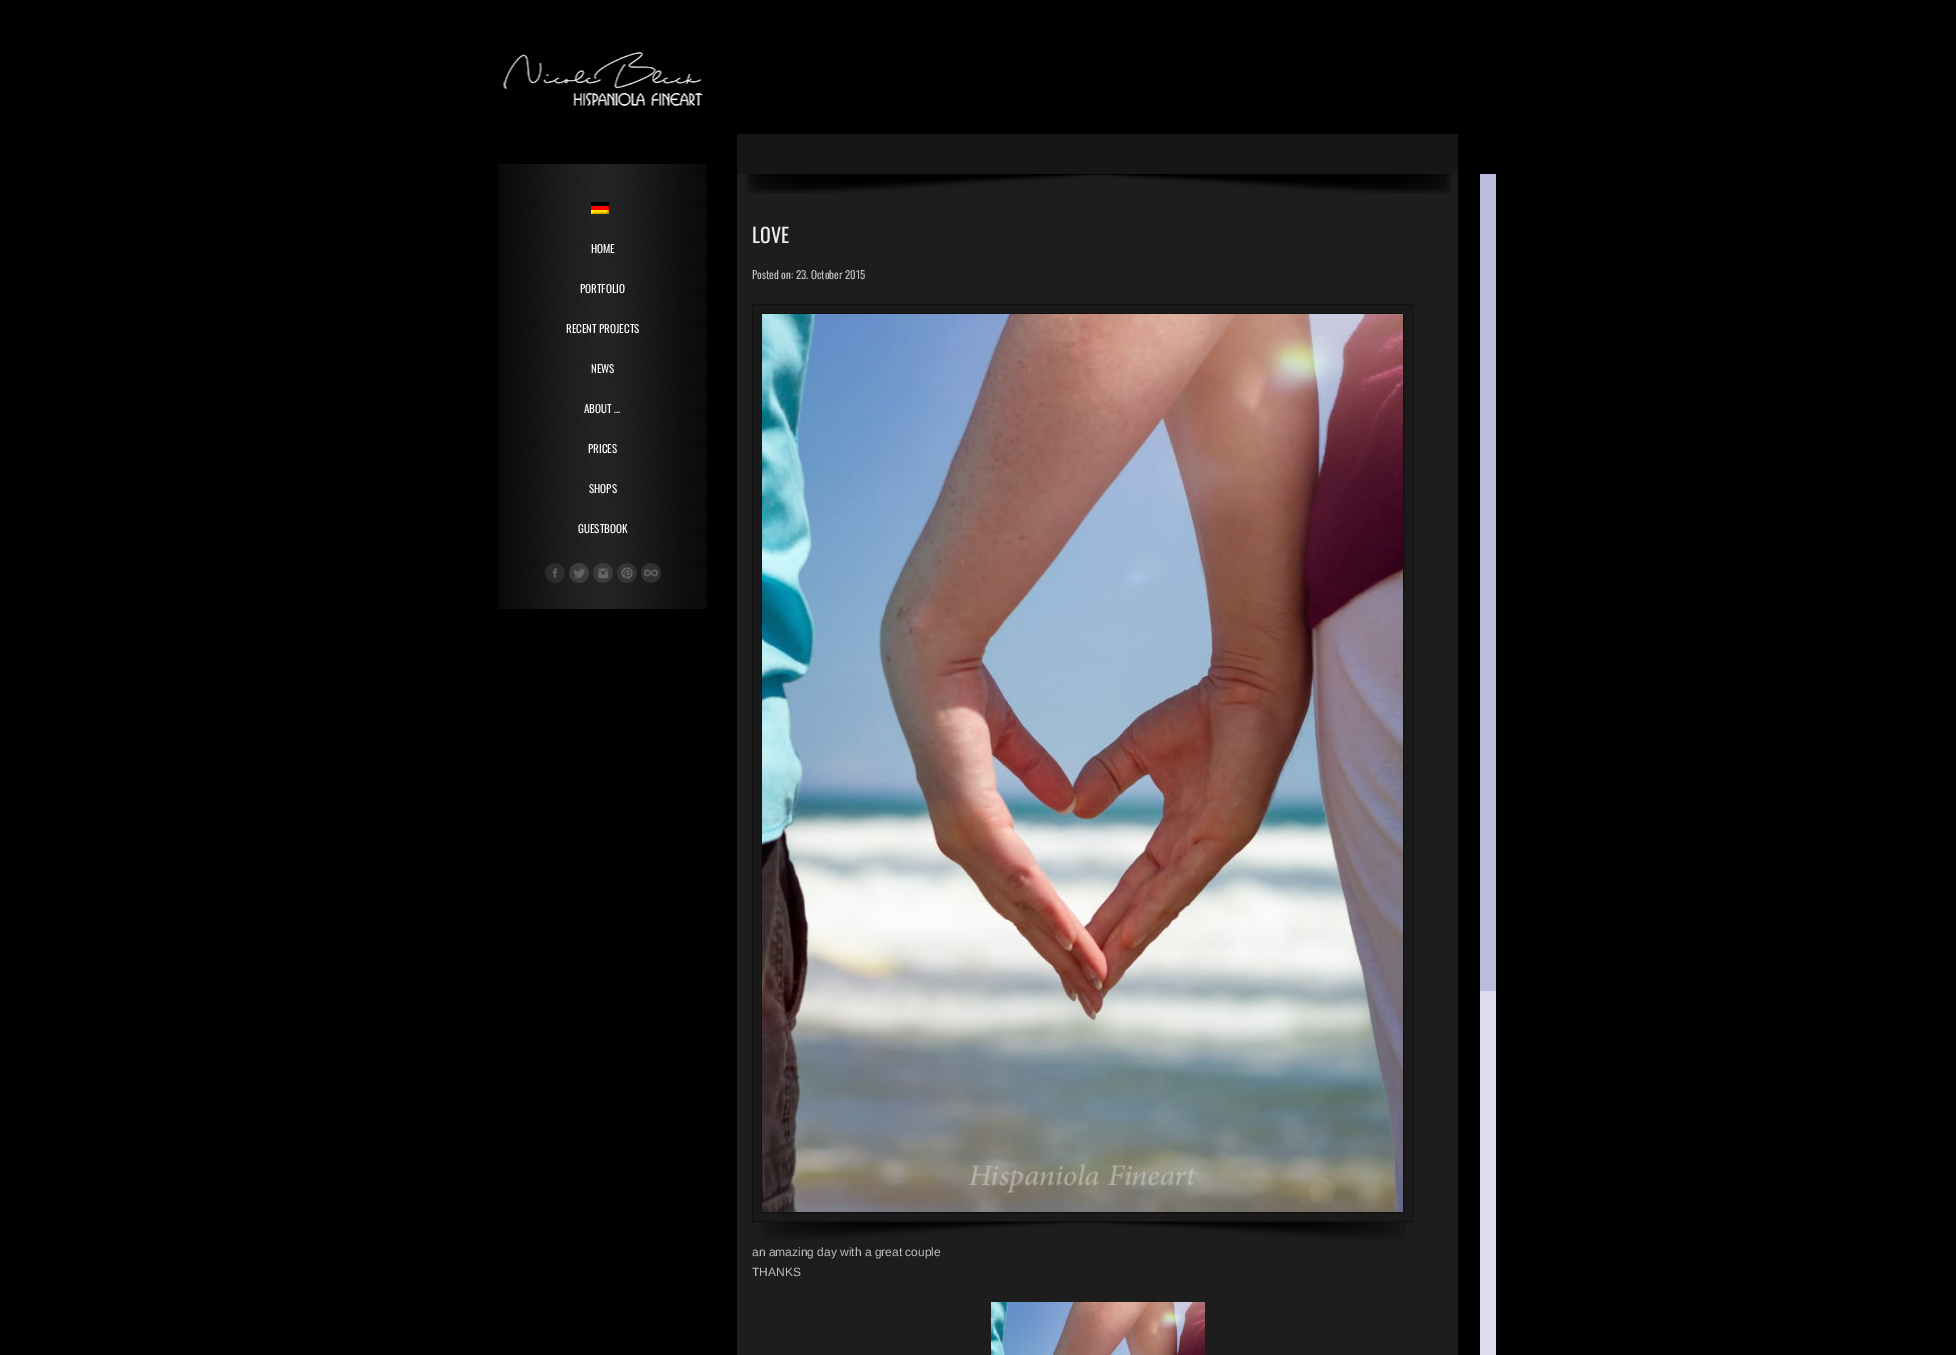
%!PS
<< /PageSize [1956 1355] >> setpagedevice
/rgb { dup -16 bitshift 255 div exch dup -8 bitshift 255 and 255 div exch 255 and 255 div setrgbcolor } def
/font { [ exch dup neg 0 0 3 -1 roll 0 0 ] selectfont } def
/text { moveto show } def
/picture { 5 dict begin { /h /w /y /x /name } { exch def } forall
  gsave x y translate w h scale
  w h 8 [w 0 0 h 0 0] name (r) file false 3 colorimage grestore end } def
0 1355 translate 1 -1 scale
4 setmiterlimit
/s1 { /Oswald-Regular 11 font 16#FFFFFF rgb } def
/s2 { /Oswald-Regular 20 font 16#EFEFEF rgb } def
/s3 { /Oswald-Regular 11 font 16#C0C0C0 rgb } def
/s4 { /LiberationSans-Regular 12 font 16#C0C0C0 rgb } def
16#000000 rgb
0 0 1956 1355 rectfill
(pic1.raw) 503 52 200 54 picture
(pic2.raw) 499 164 207 445 picture
16#080808 rgb
706 164 1 445 rectfill
498 164 1 445 rectfill
(pic3.raw) 591 202 18 12 picture
s1
(HOME) 591 253 text
(PORTFOLIO) 580 293 text
(RECENT PROJECTS) 566 333 text
(NEWS) 591 373 text
(ABOUT …) 584 413 text
(PRICES) 588 453 text
(SHOPS) 589 493 text
(GUESTBOOK) 578 533 text
(pic4.raw) 545 563 20 20 picture
(pic5.raw) 569 563 20 20 picture
(pic6.raw) 593 563 20 20 picture
(pic7.raw) 617 563 20 20 picture
(pic8.raw) 641 563 20 20 picture
16#161616 rgb
737 134 721 40 rectfill
16#1D1D1D rgb
737 174 721 1181 rectfill
(pic9.raw) 746 174 706 20 picture
(pic10.raw) 747 174 704 19 picture
(pic11.raw) 751 174 696 16 picture
s2
(LOVE) 752 243 text
s3
(Posted on: 23. October 2015) 752 279 text
16#1A1A1A rgb
752.5 304.5 moveto 1412.5 304.5 lineto 1412.5 1221.5 lineto 752.5 1221.5 lineto closepath gsave fill grestore
16#111111 rgb
stroke
761.5 313.5 642 899 rectstroke
(pic12.raw) 762 314 641 898 picture
(pic13.raw) 761 1222 645 18 picture
s4
(an amazing day with a great couple) 752 1256 text
(THANKS) 752 1276 text
(pic14.raw) 991 1302 214 53 picture
16#DDDDEE rgb
1480 991 16 364 rectfill
16#BBBBDD rgb
1480 174 16 817 rectfill
showpage
